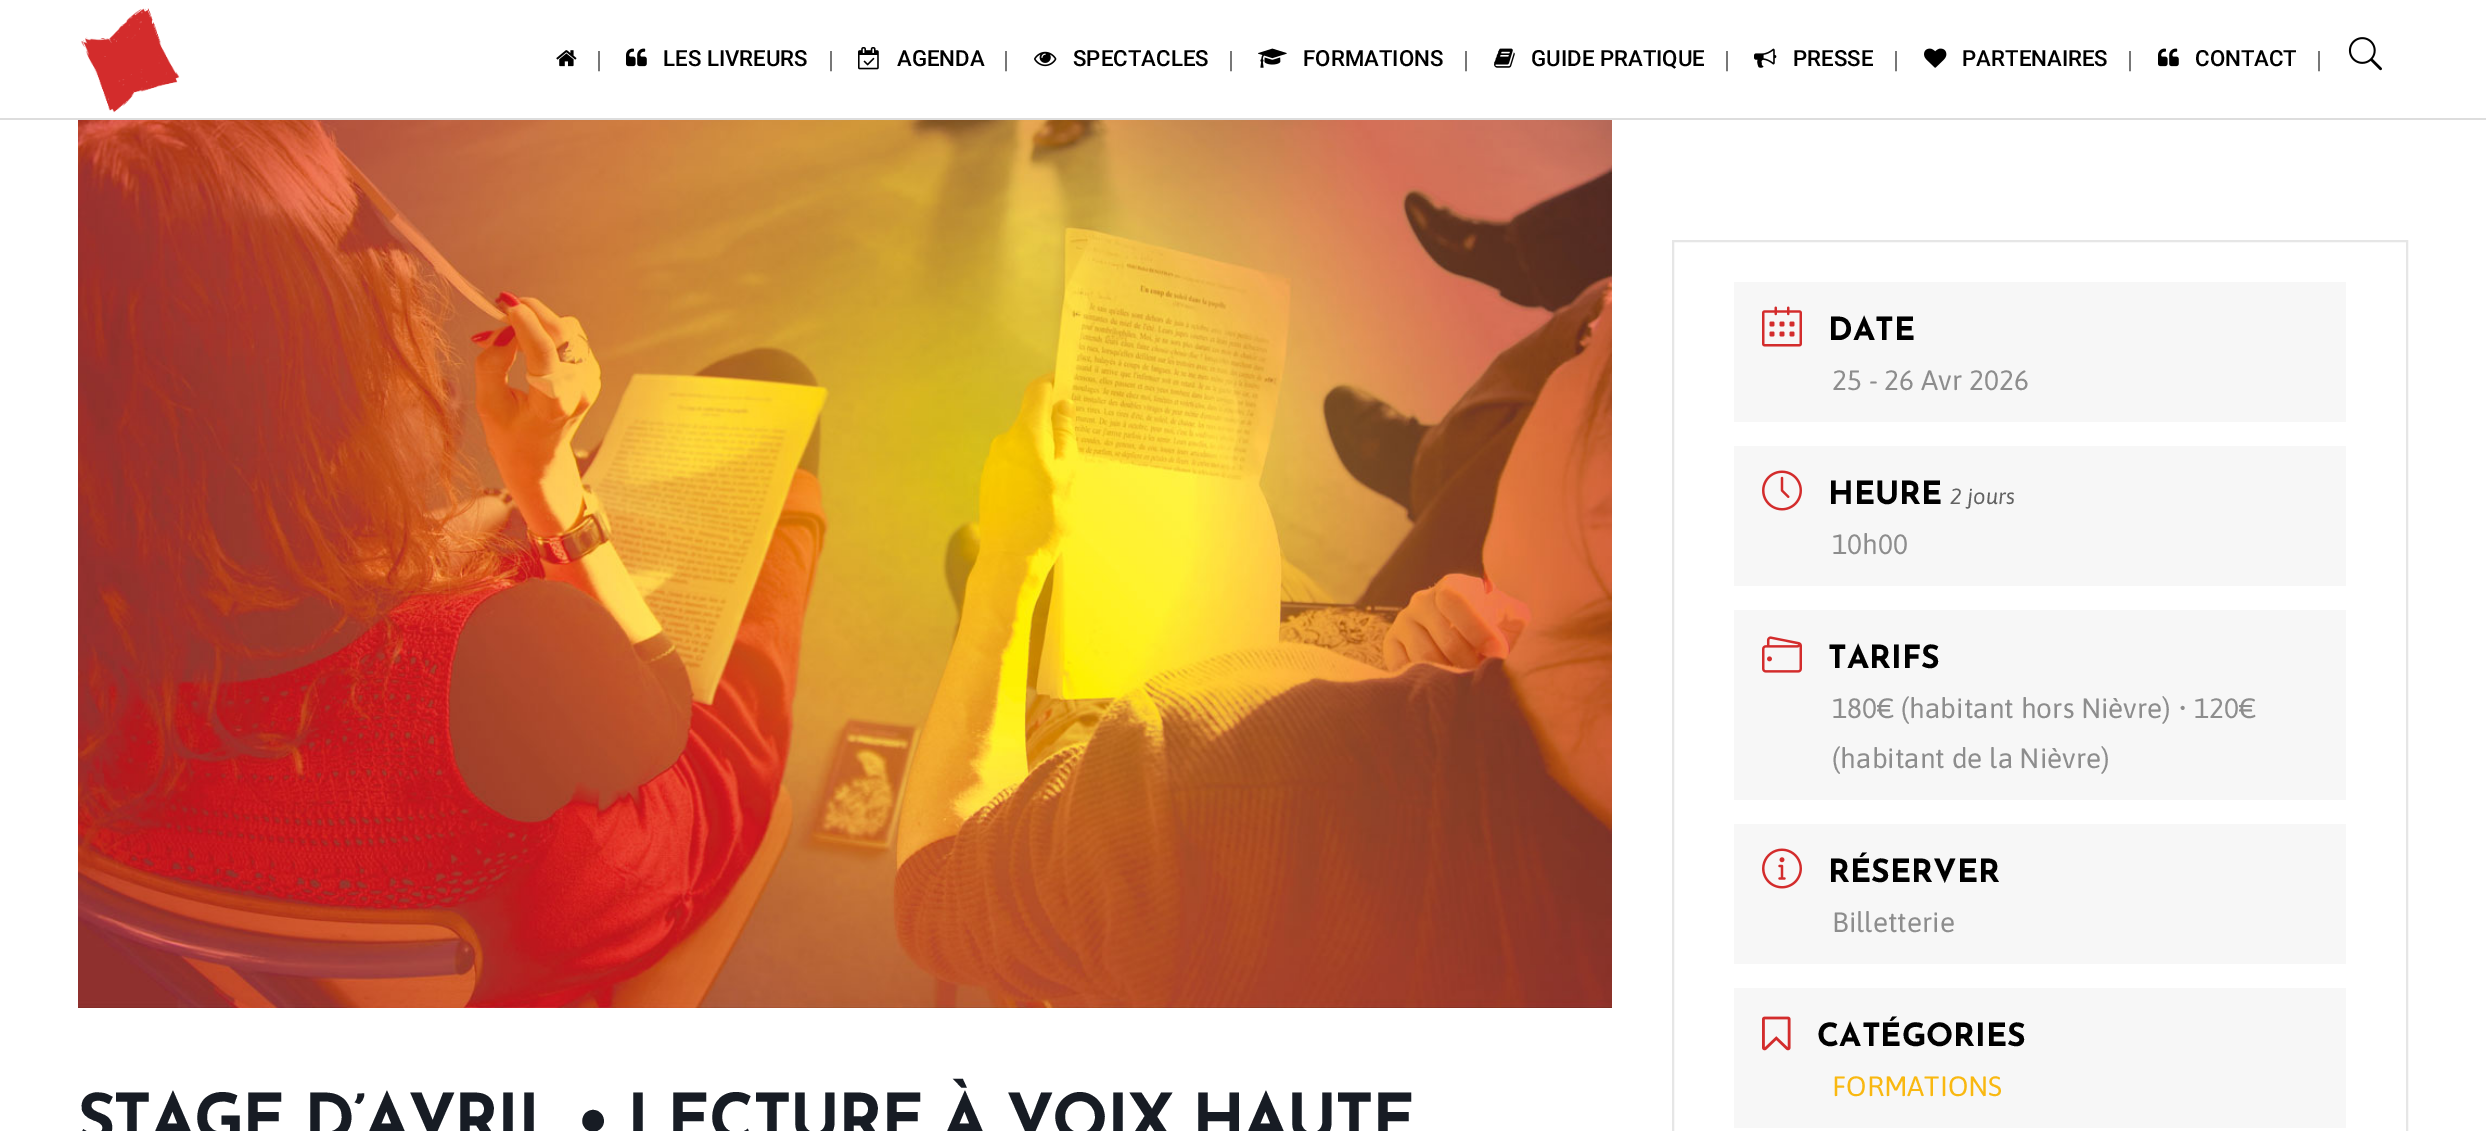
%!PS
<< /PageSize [2486 1131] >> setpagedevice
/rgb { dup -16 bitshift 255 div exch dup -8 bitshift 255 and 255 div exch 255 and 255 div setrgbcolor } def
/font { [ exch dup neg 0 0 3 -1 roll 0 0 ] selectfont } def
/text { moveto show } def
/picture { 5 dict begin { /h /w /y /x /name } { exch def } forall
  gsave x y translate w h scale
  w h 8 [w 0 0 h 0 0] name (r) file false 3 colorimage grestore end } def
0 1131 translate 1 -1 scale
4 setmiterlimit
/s1 { /Roboto-Medium 24 font 16#777777 rgb } def
/s2 { /Roboto-Medium 22.25 font 16#000000 rgb } def
/s3 { /JosefinSans-Bold 32 font 16#000000 rgb } def
/s4 { /Asap-Regular 28 font 16#8D8D8D rgb } def
/s5 { /Asap-Italic 22 font 16#626262 rgb } def
/s6 { /Asap-Regular 28 font 16#F9B811 rgb } def
16#FFFFFF rgb
0 0 2486 1131 rectfill
16#DDDDDD rgb
0 118 2486 2 rectfill
(pic1.raw) 81 8 99 105 picture
(pic2.raw) 556 50 21 17 picture
s1
(|) 596 68 text
(pic3.raw) 626 48 21 19 picture
s2
(LES LIVREURS) 663 66 text
s1
(|) 828 68 text
(pic4.raw) 858 47 21 23 picture
s2
(AGENDA) 897 66 text
s1
(|) 1003 68 text
(pic5.raw) 1034 51 23 16 picture
s2
(SPECTACLES) 1073 66 text
s1
(|) 1228 68 text
(pic6.raw) 1258 48 29 20 picture
s2
(FORMATIONS) 1303 66 text
s1
(|) 1463 68 text
(pic7.raw) 1494 48 21 20 picture
s2
(GUIDE PRATIQUE) 1531 66 text
s1
(|) 1724 68 text
(pic8.raw) 1754 48 23 20 picture
s2
(PRESSE) 1793 66 text
s1
(|) 1893 68 text
(pic9.raw) 1924 48 23 20 picture
s2
(PARTENAIRES) 1962 66 text
s1
(|) 2127 68 text
(pic3.raw) 2158 48 21 19 picture
s2
(CONTACT) 2195 66 text
s1
(|) 2316 68 text
(pic10.raw) 2348 37 34 34 picture
16#E6E6E6 rgb
2 setlinewidth
1673 241 734 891 rectstroke
16#F7F7F7 rgb
1734 282 612 140 rectfill
(pic11.raw) 1762 306 40 41 picture
s3
(DATE) 1828 340 text
s4
(25 - 26 Avr 2026) 1832 390 text
16#F7F7F7 rgb
1734 446 612 140 rectfill
(pic12.raw) 1762 470 40 41 picture
s3
(HEURE) 1828 504 text
s5
(2 jours) 1950 504 text
s4
(10h00) 1832 554 text
16#F7F7F7 rgb
1734 610 612 190 rectfill
(pic13.raw) 1762 636 40 37 picture
s3
(TARIFS) 1828 668 text
s4
(180€ \(habitant hors Nièvre\) • 120€) 1832 718 text
(\(habitant de la Nièvre\)) 1832 768 text
16#F7F7F7 rgb
1734 824 612 140 rectfill
(pic14.raw) 1762 848 40 41 picture
s3
(RÉSERVER) 1828 882 text
s4
(Billetterie) 1832 932 text
16#F7F7F7 rgb
1734 988 612 140 rectfill
(pic15.raw) 1762 1016 29 35 picture
s3
(CATÉGORIES) 1817 1046 text
s6
(FORMATIONS) 1832 1096 text
(pic16.raw) 78 120 1534 888 picture
/JosefinSans-Bold 66 font
16#171C24 rgb
77 1141 moveto -2 0 (STAGE D’AVRIL • LECTURE À VOIX HAUTE) ashow
showpage
